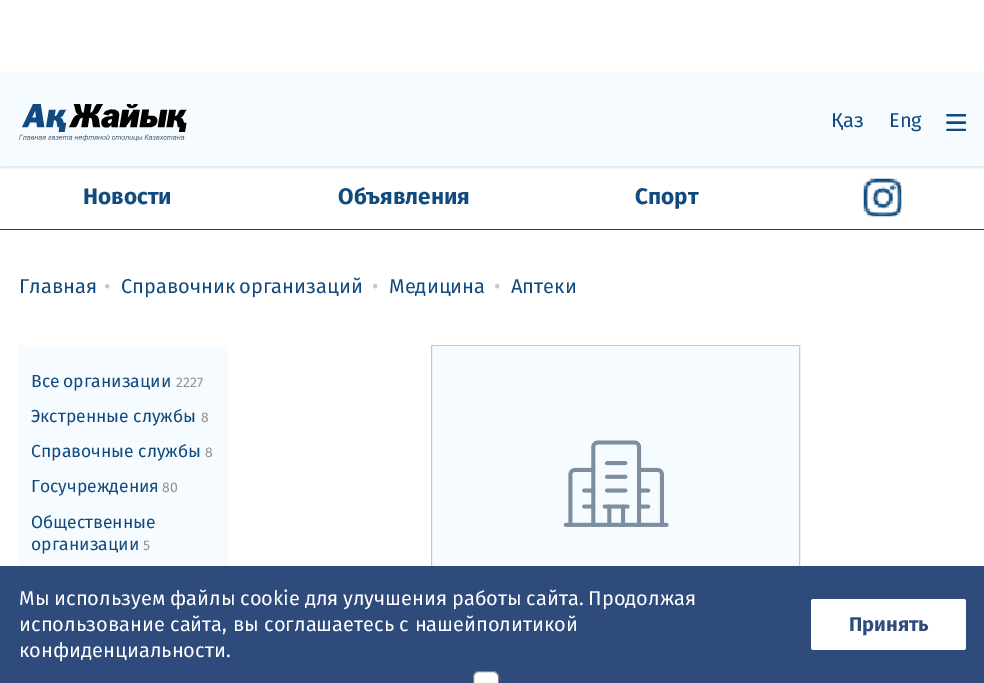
%!PS
<< /PageSize [984 683] /PageUsesTransparency true >> setpagedevice
/rgb { dup -16 bitshift 255 div exch dup -8 bitshift 255 and 255 div exch 255 and 255 div setrgbcolor } def
/font { [ exch dup neg 0 0 3 -1 roll 0 0 ] selectfont } def
/text { moveto show } def
/alpha { dup .setfillconstantalpha .setstrokeconstantalpha } def
/roundrect { 5 dict begin { /r /h /w /y /x } { exch def } forall
  x r add y moveto x w add y 2 copy h add r arct x w add y h add x 1 index r arct
  x y h add x y r arct x y 2 copy exch w add exch r arct closepath end } def
/shadow { 12 dict begin { /a /b /q /h /w /y /x } { exch def } forall gsave /was 0 def
  9 -2 -9 { dup b mul 4 div /e exch def 1 sub .425 mul 2.718 exch exp 1 add a .99 .min exch div /now exch def
    1 1 now sub 1 was sub div sub alpha /was now def
    w h .min e 2 mul add 0 gt { x e sub y e sub w e 2 mul add h e 2 mul add
      q e add b .6 mul add w h .min 2 div e add .min 0 .max roundrect fill } if } for grestore end } def
/picture { 5 dict begin { /h /w /y /x /name } { exch def } forall
  gsave x y translate w h scale
  w h 8 [w 0 0 h 0 0] name (r) file false 3 colorimage grestore end } def
0 .pushpdf14devicefilter
0 683 translate 1 -1 scale
4 setmiterlimit
/s1 { /FiraSans-Regular 20 font 16#114A7F rgb } def
/s2 { /FiraSans-Bold 22.5 font 16#114A7F rgb } def
/s3 { /FiraSans-Regular 20 font 16#B9CBDC rgb } def
/s4 { /FiraSans-Regular 14 font 16#919191 rgb } def
/s5 { /FiraSans-Regular 17.5 font 16#114A7F rgb } def
/s6 { /FiraSans-Regular 20 font 16#FFFFFF rgb } def
/s7 { /FiraSans-Bold 20 font 16#2E4B7C rgb } def
16#FFFFFF rgb
0 0 984 683 rectfill
16#054C74 rgb
0 74 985 94 0 1 0.12 shadow
16#F5FBFF rgb
0 73 984 93 rectfill
(pic1.raw) 19 104 168 37 picture
s1
(Қаз) 831 127 text
(Eng) 889 127 text
gsave
946 114 20 17 rectclip
2.5 setlinewidth
1 setlinecap
947.5 115 moveto 965 115 lineto 947.5 122.5 moveto 965 122.5 lineto 947.5 130 moveto 965 130 lineto stroke
grestore
0 229 984 1 rectfill
s2
(Новости) 83 204 text
(Объявления) 338 204 text
(Спорт) 635 204 text
(pic2.raw) 863 178 39 39 picture
s1
(Главная) 19 293 text
s3
(•) 104 293 text
16#114A7F rgb
121 293 moveto -1 0 32 (Справочник организаций) widthshow
s3
(•) 372 293 text
s1
(Медицина) 389 293 text
s3
(•) 494 293 text
s1
(Аптеки) 511 293 text
16#F5FBFF rgb
19 345 209 221 rectfill
/FiraSans-Regular 17.5 font
16#114A7F rgb
31 387 moveto -1 0 32 (Все организации) widthshow
s4
(2227) 176 387 text
s5
(Экстренные службы) 31 422 text
s4
(8) 201 422 text
s5
(Справочные службы) 31 457 text
s4
(8) 205 457 text
s5
(Госучреждения) 31 492 text
s4
(80) 162 492 text
s5
(Общественные) 31 528 text
(организации) 31 550 text
s4
(5) 143 550 text
16#B9CBDC rgb
431.5 345.5 368 277 rectstroke
16#F5FBFF rgb
433 346 366 220 rectfill
(pic3.raw) 563 440 106 87 picture
16#2E4B7C rgb
0 566 984 117 rectfill
/FiraSans-Regular 20 font
16#FFFFFF rgb
19 605 moveto -0.5 0 32 (Мы используем файлы cookie для улучшения работы сайта. Продолжая) widthshow
19 631 moveto 0.25 0 32 (использование сайта, вы соглашаетесь с нашей) widthshow
(политикой) 476 631 text
(конфиденциальности.) 19 657 text
811 599 155 51 2.5 roundrect fill
s7
(Принять) 849 631 text
16#FFFFFF rgb
473.5 671.5 25 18 5.5 roundrect gsave fill grestore
16#808080 rgb
stroke
.poppdf14devicefilter showpage
